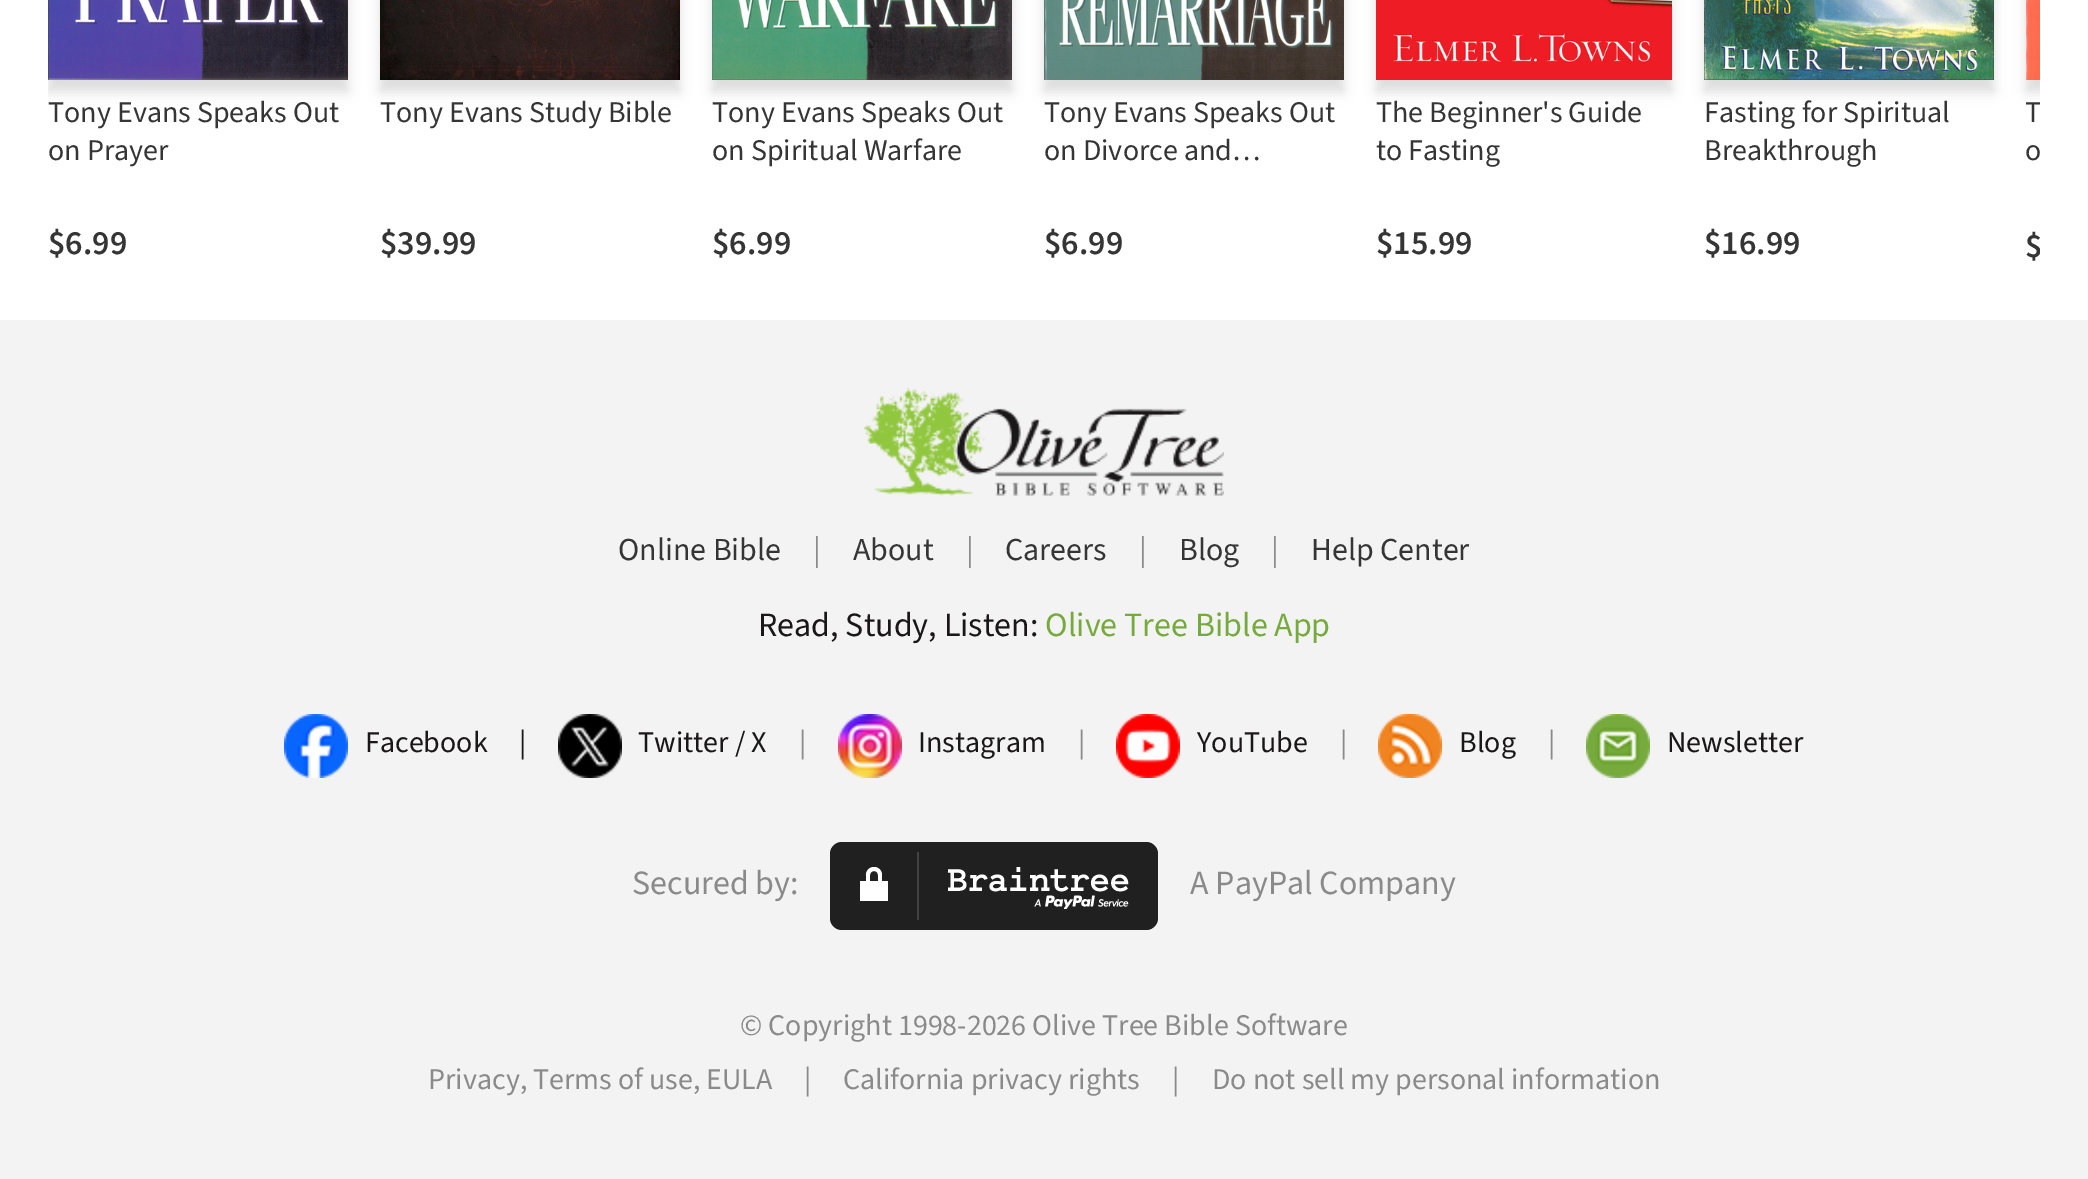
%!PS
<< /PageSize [2088 1179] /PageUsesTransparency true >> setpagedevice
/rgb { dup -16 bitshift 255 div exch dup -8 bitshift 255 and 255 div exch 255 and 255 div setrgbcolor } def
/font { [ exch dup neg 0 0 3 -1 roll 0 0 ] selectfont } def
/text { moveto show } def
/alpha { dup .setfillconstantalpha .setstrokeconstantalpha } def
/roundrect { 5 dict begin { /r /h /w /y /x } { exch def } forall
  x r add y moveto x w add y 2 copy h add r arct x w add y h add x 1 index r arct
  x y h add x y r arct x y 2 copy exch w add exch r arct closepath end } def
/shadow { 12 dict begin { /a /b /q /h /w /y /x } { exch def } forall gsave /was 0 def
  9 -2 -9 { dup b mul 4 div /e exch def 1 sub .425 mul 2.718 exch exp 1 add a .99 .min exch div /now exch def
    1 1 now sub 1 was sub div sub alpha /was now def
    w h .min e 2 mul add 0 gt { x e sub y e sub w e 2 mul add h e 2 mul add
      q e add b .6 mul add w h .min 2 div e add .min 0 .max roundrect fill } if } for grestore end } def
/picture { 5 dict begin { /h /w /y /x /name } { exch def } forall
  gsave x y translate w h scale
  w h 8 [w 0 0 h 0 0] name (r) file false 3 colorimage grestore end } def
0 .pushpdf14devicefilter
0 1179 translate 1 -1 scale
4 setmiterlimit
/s1 { /SourceSans3-Regular 30 font 16#353535 rgb } def
/s2 { /SourceSans3-SemiBold 34 font 16#353535 rgb } def
/s3 { /SourceSans3-Regular 32 font 16#353535 rgb } def
/s4 { /SourceSans3-Regular 32 font 16#8A8A8A rgb } def
/s5 { /SourceSans3-Regular 34 font 16#1A1718 rgb } def
/s6 { /SourceSans3-Regular 34 font 16#77AA3C rgb } def
/s7 { /SourceSans3-Regular 30 font 16#1A1718 rgb } def
/s8 { /SourceSans3-Regular 30 font 16#8A8A8A rgb } def
/s9 { /SourceSans3-Regular 34 font 16#8A8A8A rgb } def
16#FFFFFF rgb
0 0 2088 1179 rectfill
gsave
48 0 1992 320 rectclip
16#000000 rgb
48 -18 300 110 0 6 0.13 shadow
grestore
(pic1.raw) 48 0 300 80 picture
s1
(Tony Evans Speaks Out) 48 122 text
(on Prayer) 48 160 text
s2
($6.99) 48 254 text
16#000000 rgb
380 -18 300 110 0 6 0.13 shadow
(pic2.raw) 380 0 300 80 picture
s1
(Tony Evans Study Bible) 380 122 text
s2
($39.99) 380 254 text
16#000000 rgb
712 -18 300 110 0 6 0.13 shadow
(pic3.raw) 712 0 300 80 picture
s1
(Tony Evans Speaks Out) 712 122 text
(on Spiritual Warfare) 712 160 text
s2
($6.99) 712 254 text
16#000000 rgb
1044 -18 300 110 0 6 0.13 shadow
(pic4.raw) 1044 0 300 80 picture
s1
(Tony Evans Speaks Out) 1044 122 text
(on Divorce and…) 1044 160 text
s2
($6.99) 1044 254 text
16#000000 rgb
1376 -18 296 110 0 6 0.13 shadow
(pic5.raw) 1376 0 296 80 picture
s1
(The Beginner's Guide) 1376 122 text
(to Fasting) 1376 160 text
s2
($15.99) 1376 254 text
16#000000 rgb
1704 -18 290 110 0 6 0.13 shadow
(pic6.raw) 1704 0 290 80 picture
s1
(Fasting for Spiritual) 1704 122 text
(Breakthrough) 1704 160 text
s2
($16.99) 1704 254 text
gsave
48 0 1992 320 rectclip
16#000000 rgb
2026 -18 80 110 0 6 0.13 shadow
grestore
(pic7.raw) 2026 0 14 80 picture
gsave
2026 96 14 76 rectclip
s1
(T) 2025 122 text
grestore
s1
(o) 2025 160 text
gsave
48 0 1992 320 rectclip
s2
($) 2025 257 text
grestore
16#F3F3F3 rgb
0 320 2088 859 rectfill
(pic8.raw) 864 387 360 109 picture
s3
(Online Bible) 618 560 text
s4
(|) 813 560 text
s3
(About) 853 560 text
s4
(|) 966 560 text
s3
(Careers) 1005 560 text
s4
(|) 1139 560 text
s3
(Blog) 1179 560 text
s4
(|) 1271 560 text
s3
(Help Center) 1311 560 text
s5
(Read, Study, Listen:) 758 636 text
s6
(Olive Tree Bible App) 1045 636 text
(pic9.raw) 284 714 64 64 picture
s7
(Facebook) 365 752 text
(|) 519 752 text
(pic10.raw) 558 714 64 64 picture
(Twitter / X) 638 752 text
s8
(|) 799 752 text
(pic11.raw) 838 714 64 64 picture
s7
(Instagram) 918 752 text
s8
(|) 1078 752 text
(pic12.raw) 1116 714 64 64 picture
s7
(YouTube) 1197 752 text
s8
(|) 1340 752 text
(pic13.raw) 1378 714 64 64 picture
s7
(Blog) 1459 752 text
s8
(|) 1548 752 text
(pic14.raw) 1586 714 64 64 picture
s7
(Newsletter) 1667 752 text
s9
(Secured by:) 632 894 text
(pic15.raw) 830 842 328 88 picture
(A PayPal Company) 1190 894 text
s8
(© Copyright 1998-2026 Olive Tree Bible Software) 740 1035 text
(Privacy, Terms of use, EULA) 428 1089 text
(|) 804 1089 text
(California privacy rights) 843 1089 text
(|) 1172 1089 text
(Do not sell my personal information) 1212 1089 text
.poppdf14devicefilter showpage
